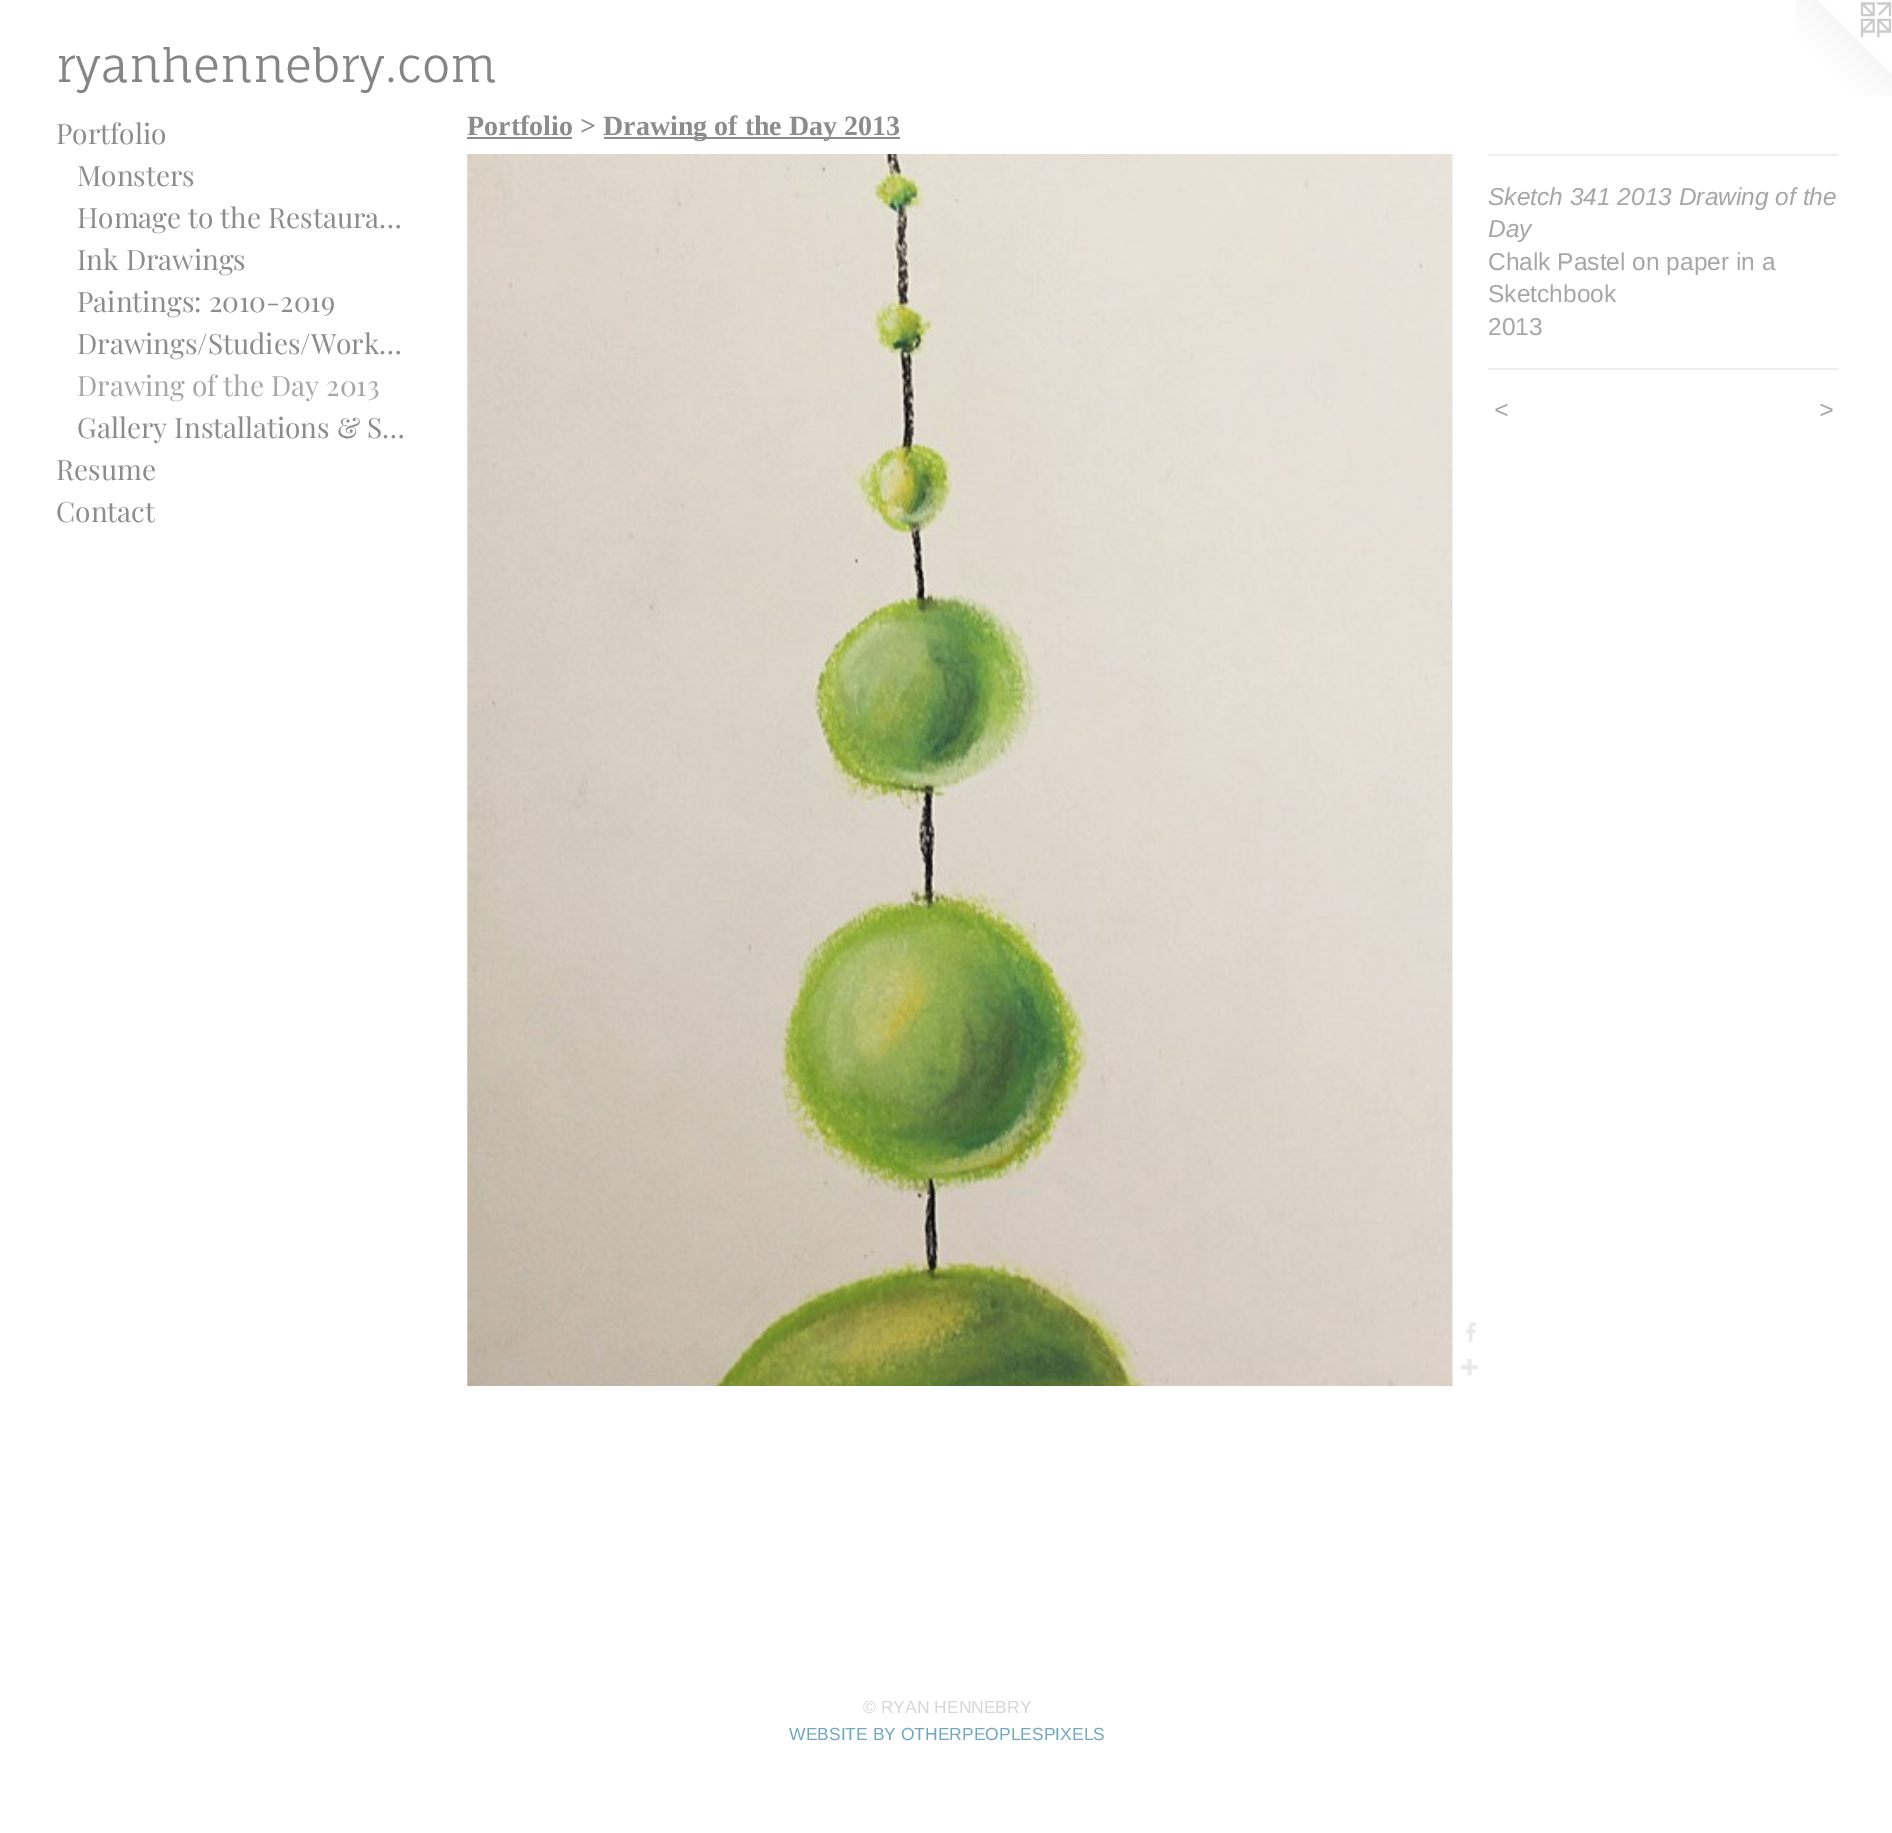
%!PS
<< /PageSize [1892 1833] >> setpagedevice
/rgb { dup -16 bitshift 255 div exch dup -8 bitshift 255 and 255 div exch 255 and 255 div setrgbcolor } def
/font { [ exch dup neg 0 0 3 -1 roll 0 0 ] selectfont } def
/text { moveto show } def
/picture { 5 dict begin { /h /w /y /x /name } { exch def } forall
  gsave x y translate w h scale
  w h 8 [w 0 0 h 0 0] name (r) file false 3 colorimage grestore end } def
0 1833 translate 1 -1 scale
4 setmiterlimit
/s1 { /FaunaOne-Regular 45.5 font 16#858585 rgb } def
/s2 { /PlayfairDisplay-Regular 28 font 16#8C8C8C rgb } def
/s3 { /PlayfairDisplay-Regular 28 font 16#A6A6A6 rgb } def
/s4 { /LiberationSerif-Bold 28 font 16#8C8C8C rgb } def
/s5 { /LiberationSans-Italic 24.5 font 16#A6A6A6 rgb } def
/s6 { /LiberationSans-Regular 24.5 font 16#A6A6A6 rgb } def
/s7 { /LiberationSans-Regular 17.5 font 16#D6D6D6 rgb } def
/s8 { /LiberationSans-Regular 17.5 font 16#70A8C0 rgb } def
16#FFFFFF rgb
0 0 1892 1833 rectfill
s1
(ryanhennebry.com) 56 82 text
(pic1.raw) 1796 0 96 96 picture
s2
(Portfolio) 56 144 text
(Monsters) 77 186 text
(Homage to the Restaura…) 77 228 text
(Ink Drawings) 77 270 text
(Paintings: 2010-2019) 77 312 text
(Drawings/Studies/Work…) 77 354 text
s3
(Drawing of the Day 2013) 77 396 text
s2
(Gallery Installations & S…) 77 438 text
(Resume) 56 480 text
(Contact) 56 522 text
s4
(Portfolio >) 467 135 text
467 137 105 2 rectfill
604 137 296 2 rectfill
(Drawing of the Day 2013) 603 135 text
(pic2.raw) 467 154 986 1232 picture
(pic3.raw) 1466 1322 10 20 picture
(pic4.raw) 1461 1359 17 17 picture
16#EEEEEE rgb
1488 154 350 2 rectfill
s5
(Sketch 341 2013 Drawing of the) 1488 205 text
(Day) 1488 237 text
s6
(Chalk Pastel on paper in a) 1488 270 text
(Sketchbook) 1488 302 text
(2013) 1488 335 text
16#EEEEEE rgb
1488 368 350 2 rectfill
/LiberationSans-Italic 24.5 font
16#A6A6A6 rgb
1494 418 moveto 2 0 (<) ashow
1819 418 moveto 2 0 (>) ashow
s7
(© RYAN HENNEBRY) 863 1713 text
s8
(WEBSITE BY OTHERPEOPLESPIXELS) 789 1740 text
showpage
